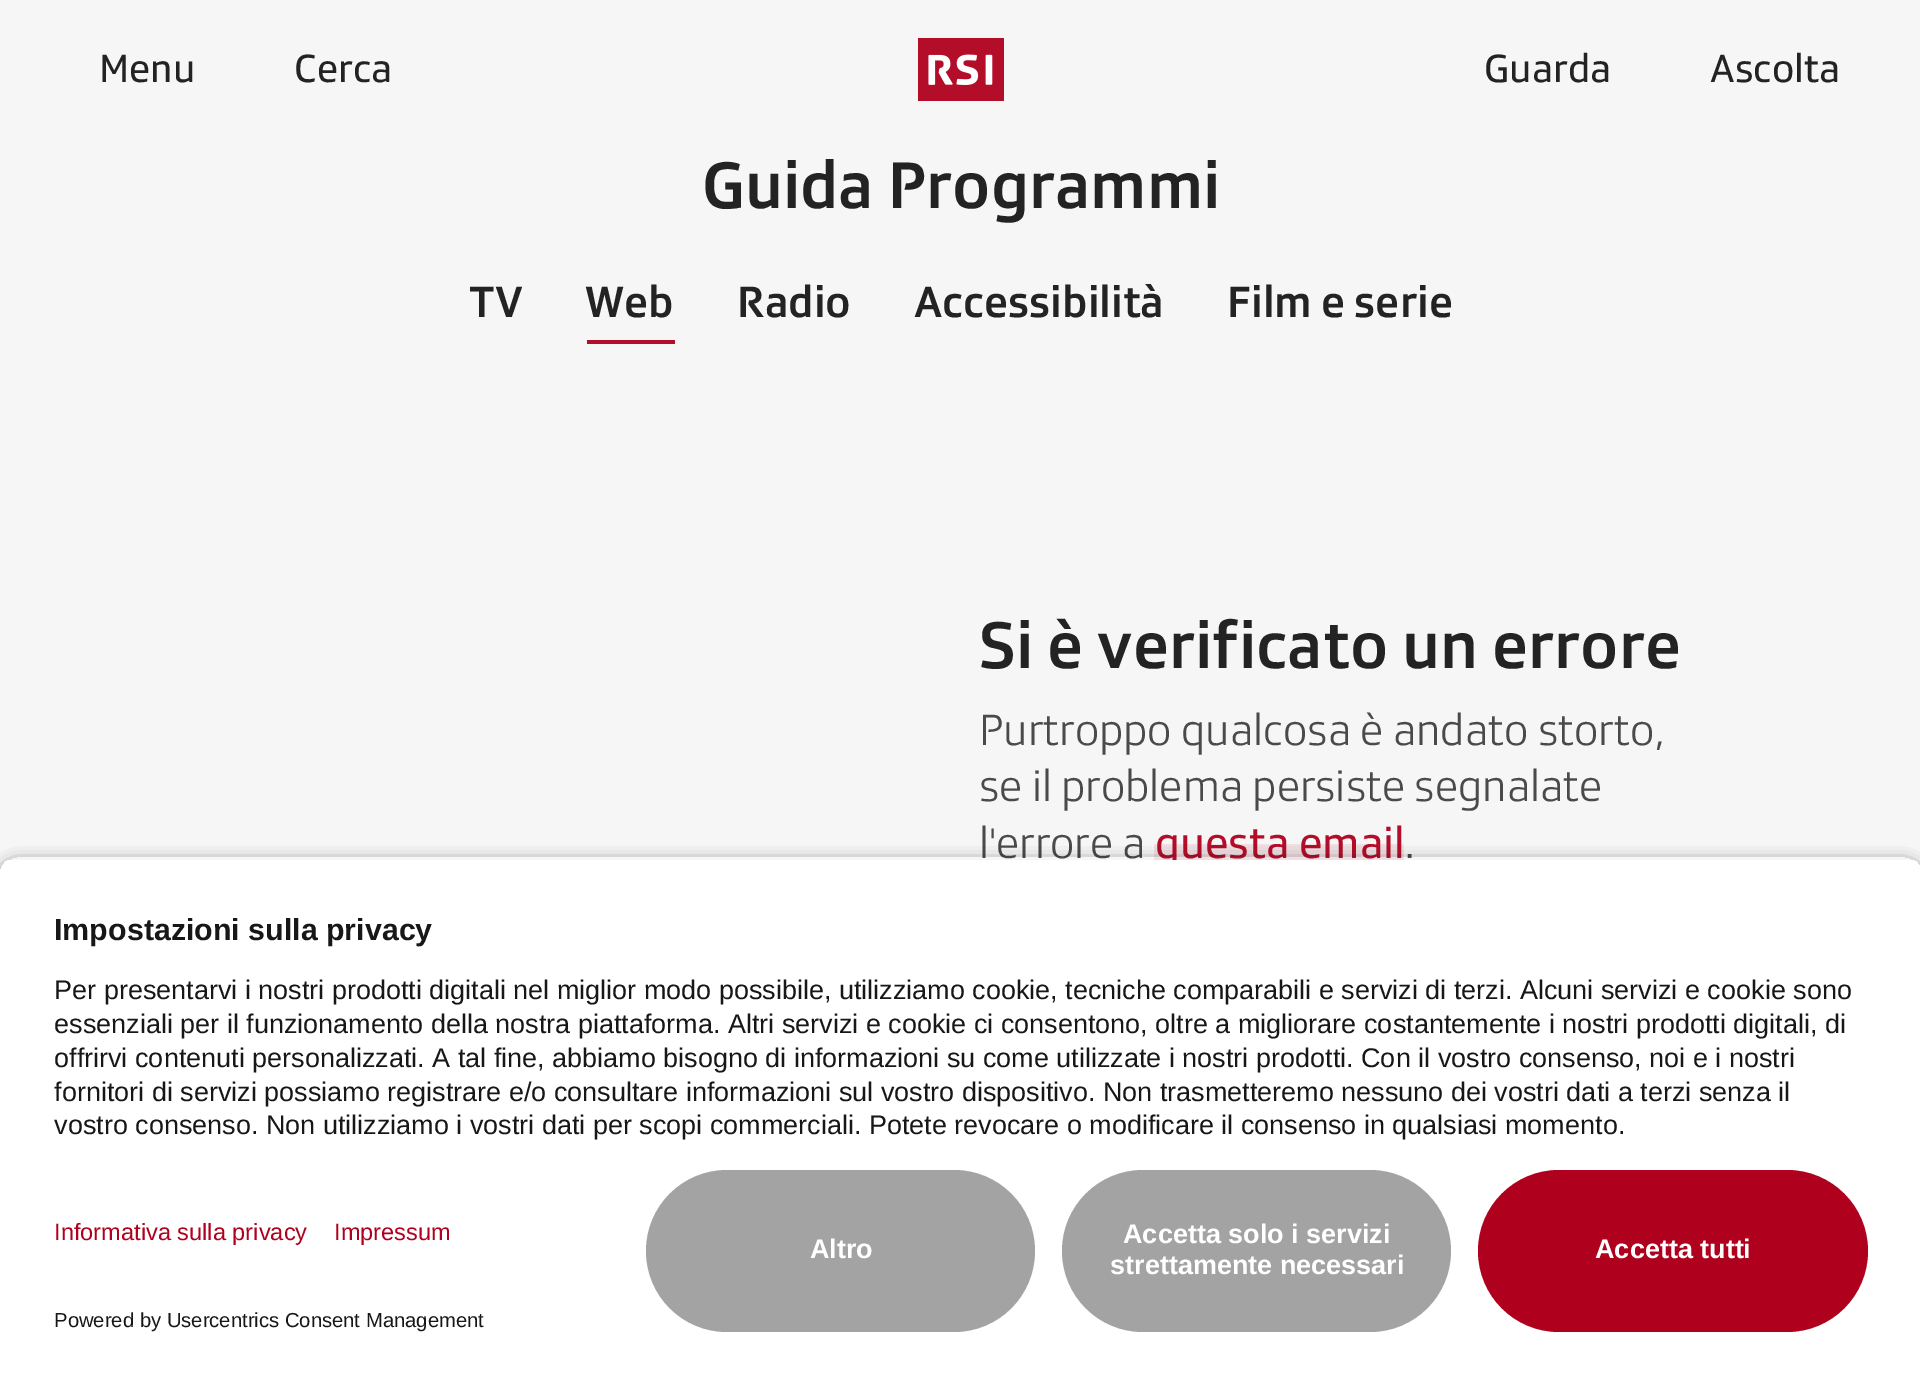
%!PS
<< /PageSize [1920 1386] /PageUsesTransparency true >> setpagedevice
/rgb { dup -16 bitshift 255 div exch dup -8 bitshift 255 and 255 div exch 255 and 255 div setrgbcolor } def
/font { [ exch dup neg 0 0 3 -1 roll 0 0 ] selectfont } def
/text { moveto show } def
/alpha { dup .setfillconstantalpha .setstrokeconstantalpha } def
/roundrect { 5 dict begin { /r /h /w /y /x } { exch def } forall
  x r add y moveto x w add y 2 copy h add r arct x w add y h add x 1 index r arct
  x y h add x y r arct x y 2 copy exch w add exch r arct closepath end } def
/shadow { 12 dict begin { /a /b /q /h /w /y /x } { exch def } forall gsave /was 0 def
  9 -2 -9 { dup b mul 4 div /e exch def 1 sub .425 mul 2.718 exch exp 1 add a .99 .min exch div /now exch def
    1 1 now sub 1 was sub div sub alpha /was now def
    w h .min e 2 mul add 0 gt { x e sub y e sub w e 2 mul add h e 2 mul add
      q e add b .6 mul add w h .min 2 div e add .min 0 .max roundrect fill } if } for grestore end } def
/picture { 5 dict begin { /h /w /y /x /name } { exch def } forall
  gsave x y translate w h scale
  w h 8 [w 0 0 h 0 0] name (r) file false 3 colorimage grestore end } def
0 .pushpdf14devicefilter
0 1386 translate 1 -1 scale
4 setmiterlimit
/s1 { /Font-Regular 40.5 font 16#232323 rgb } def
/s2 { /Font-Medium 67.5 font 16#232323 rgb } def
/s3 { /Font-Medium 45 font 16#232323 rgb } def
/s4 { /Font-Light 45 font 16#4A4A4A rgb } def
/s5 { /Font-Regular 45 font 16#B30D29 rgb } def
/s6 { /LiberationSans-Bold 30.4 font 16#171717 rgb } def
/s7 { /LiberationSans-Regular 27 font 16#171717 rgb } def
/s8 { /LiberationSans-Regular 23.6 font 16#AF001E rgb } def
/s9 { /LiberationSans-Regular 20.25 font 16#171717 rgb } def
/s10 { /LiberationSans-Bold 27 font 16#FFFFFF rgb } def
16#F6F6F6 rgb
0 0 1920 1386 rectfill
s1
(Menu) 99 82 text
(Cerca) 294 82 text
(pic1.raw) 918 38 86 63 picture
(Guarda) 1484 82 text
(Ascolta) 1710 82 text
s2
(Guida Programmi) 702 208 text
s3
(TV) 469 317 text
(Web) 585 317 text
16#B30D29 rgb
587 340 88 4 rectfill
s3
(Radio) 737 317 text
(Accessibilità) 914 317 text
(Film e serie) 1227 317 text
s2
(Si è verificato un errore) 979 668 text
s4
(Purtroppo qualcosa è andato storto,) 979 745 text
(se il problema persiste segnalate) 979 801 text
(l'errore a) 979 858 text
16#EFDFE2 rgb
1154 844 250 16 rectfill
s5
(questa email) 1155 858 text
s4
(.) 1404 858 text
gsave
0 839 moveto 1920 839 lineto 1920 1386 lineto 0 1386 lineto closepath 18 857 moveto 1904 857 lineto 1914 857 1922 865 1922 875 curveto 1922 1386 lineto 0 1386 lineto 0 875 lineto 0 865 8 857 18 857 curveto closepath eoclip newpath
16#000000 rgb
0 864 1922 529 18 8 0.8 shadow
grestore
gsave
18 857 moveto 1904 857 lineto 1914 857 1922 865 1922 875 curveto 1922 1152 lineto 0 1152 lineto 0 875 lineto 0 865 8 857 18 857 curveto closepath clip newpath
16#FFFFFF rgb
0 860 1920 292 rectfill
grestore
s6
(Impostazioni sulla privacy) 54 940 text
s7
(Per presentarvi i nostri prodotti digitali nel miglior modo possibile, utilizziamo cookie, tecniche comparabili e servizi di terzi. Alcuni servizi e cookie sono) 54 999 text
(essenziali per il funzionamento della nostra piattaforma. Altri servizi e cookie ci consentono, oltre a migliorare costantemente i nostri prodotti digitali, di) 54 1033 text
(offrirvi contenuti personalizzati. A tal fine, abbiamo bisogno di informazioni su come utilizzate i nostri prodotti. Con il vostro consenso, noi e i nostri) 54 1067 text
(fornitori di servizi possiamo registrare e/o consultare informazioni sul vostro dispositivo. Non trasmetteremo nessuno dei vostri dati a terzi senza il) 54 1101 text
(vostro consenso. Non utilizziamo i vostri dati per scopi commerciali. Potete revocare o modificare il consenso in qualsiasi momento.) 54 1134 text
16#FFFFFF rgb
0 1152 1920 234 rectfill
s8
(Informativa sulla privacy) 54 1240 text
(Impressum) 334 1240 text
s9
(Powered by Usercentrics Consent Management) 54 1327 text
16#A3A3A3 rgb
646 1170 389 162 81 roundrect fill
s10
(Altro) 810 1258 text
16#A3A3A3 rgb
1062 1170 389 162 81 roundrect fill
s10
(Accetta solo i servizi) 1123 1243 text
(strettamente necessari) 1110 1274 text
16#AF001E rgb
1478 1170 390 162 81 roundrect fill
s10
(Accetta tutti) 1595 1258 text
.poppdf14devicefilter showpage
